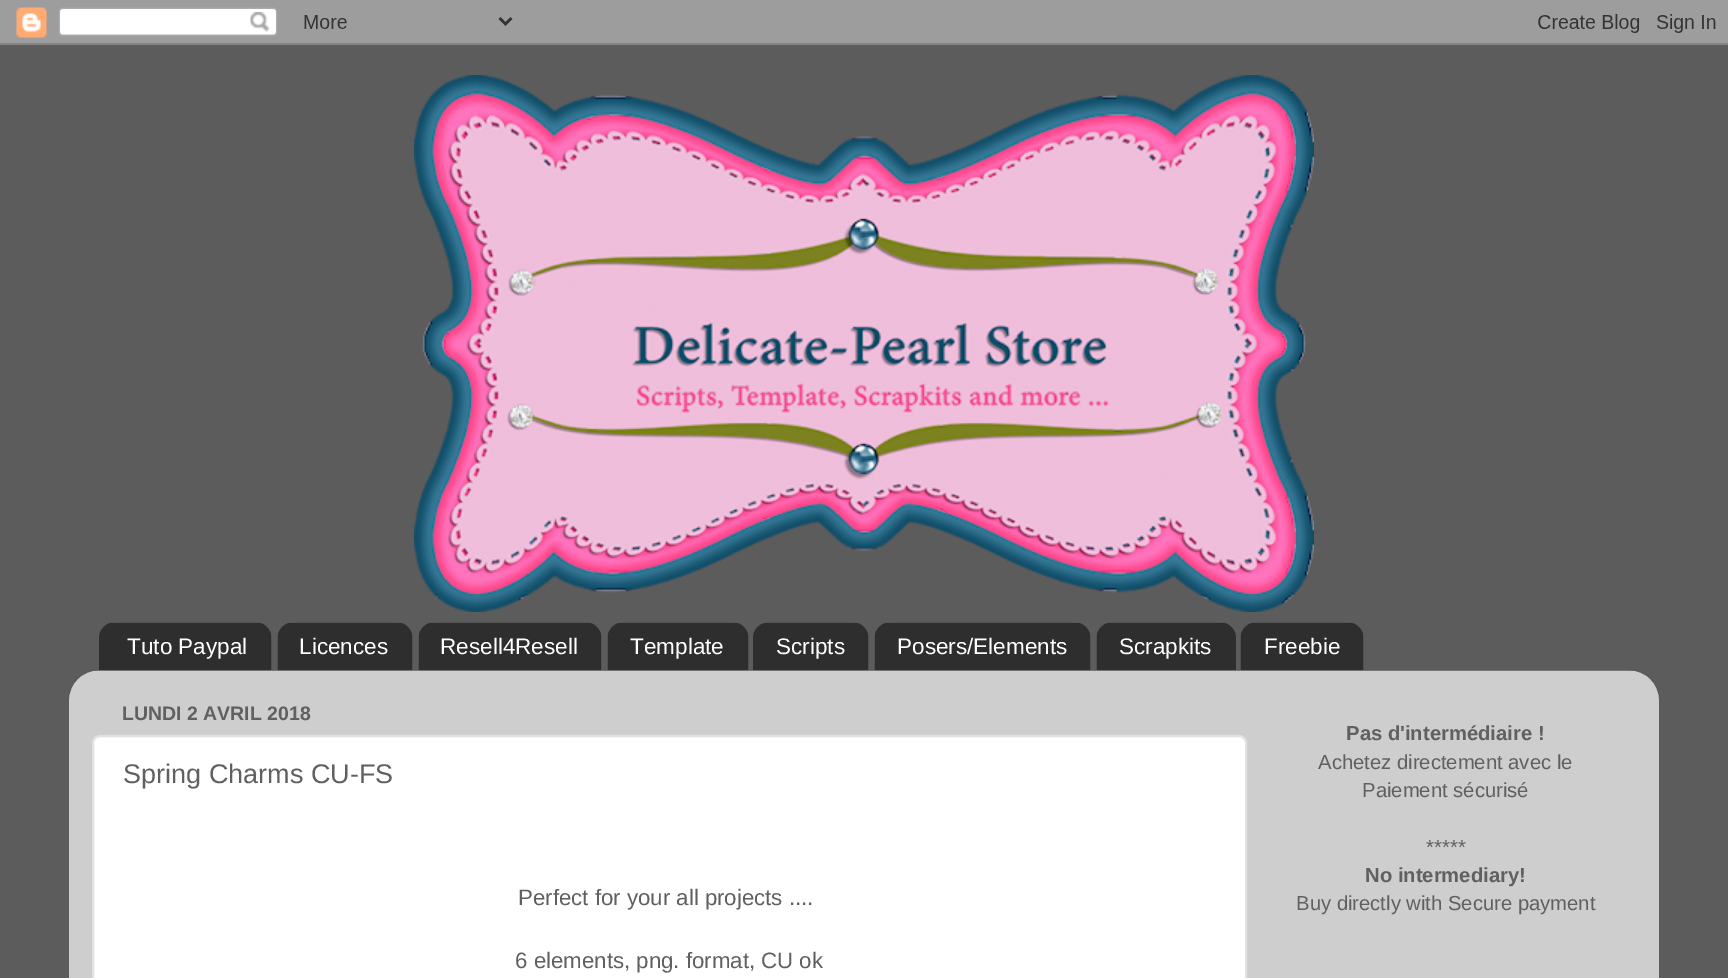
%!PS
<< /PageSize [1728 978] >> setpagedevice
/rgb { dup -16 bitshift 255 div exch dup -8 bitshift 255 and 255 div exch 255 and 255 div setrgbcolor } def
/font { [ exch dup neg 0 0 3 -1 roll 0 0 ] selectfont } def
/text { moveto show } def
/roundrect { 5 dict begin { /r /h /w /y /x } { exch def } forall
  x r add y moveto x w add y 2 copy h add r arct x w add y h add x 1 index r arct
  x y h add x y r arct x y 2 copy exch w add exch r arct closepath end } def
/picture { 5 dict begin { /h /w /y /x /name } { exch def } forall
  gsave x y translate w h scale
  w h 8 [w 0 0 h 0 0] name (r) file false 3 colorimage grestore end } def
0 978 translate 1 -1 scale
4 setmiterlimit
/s1 { /LiberationSans-Regular 22.5 font 16#FFFFFF rgb } def
/s2 { /LiberationSans-Bold 19.5 font 16#606060 rgb } def
/s3 { /LiberationSans-Regular 27 font 16#606060 rgb } def
/s4 { /LiberationSans-Regular 22.25 font 16#606060 rgb } def
/s5 { /LiberationSans-Bold 20.25 font 16#606060 rgb } def
/s6 { /LiberationSans-Regular 20.25 font 16#606060 rgb } def
16#5C5C5C rgb
0 0 1728 978 rectfill
(pic1.raw) 0 0 1728 45 picture
(pic2.raw) 414 75 900 537 picture
(pic3.raw) 99 622 173 49 picture
s1
(Tuto Paypal) 127 654 text
(pic4.raw) 277 622 136 49 picture
(Licences) 299 654 text
(pic5.raw) 418 622 184 49 picture
(Resell4Resell) 440 654 text
(pic6.raw) 607 622 142 49 picture
(Template) 630 654 text
(pic7.raw) 753 622 116 49 picture
(Scripts) 776 654 text
(pic8.raw) 874 622 217 49 picture
(Posers/Elements) 897 654 text
(pic9.raw) 1096 622 140 49 picture
(Scrapkits) 1119 654 text
(pic10.raw) 1240 622 124 49 picture
(Freebie) 1264 654 text
(pic11.raw) 69 670 1590 308 picture
s2
(LUNDI 2 AVRIL 2018) 122 720 text
16#FFFFFF rgb
93 736 1153 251 7 roundrect gsave fill grestore
16#E2E2E2 rgb
2 setlinewidth
stroke
s3
(Spring Charms CU-FS) 123 783 text
s4
(Perfect for your all projects ....) 518 905 text
(6 elements, png. format, CU ok) 515 968 text
s5
(Pas d'intermédiaire !) 1346 740 text
s6
(Achetez directement avec le) 1318 769 text
(Paiement sécurisé) 1362 797 text
(*****) 1426 854 text
s5
(No intermediary!) 1365 882 text
s6
(Buy directly with Secure payment) 1296 910 text
showpage
